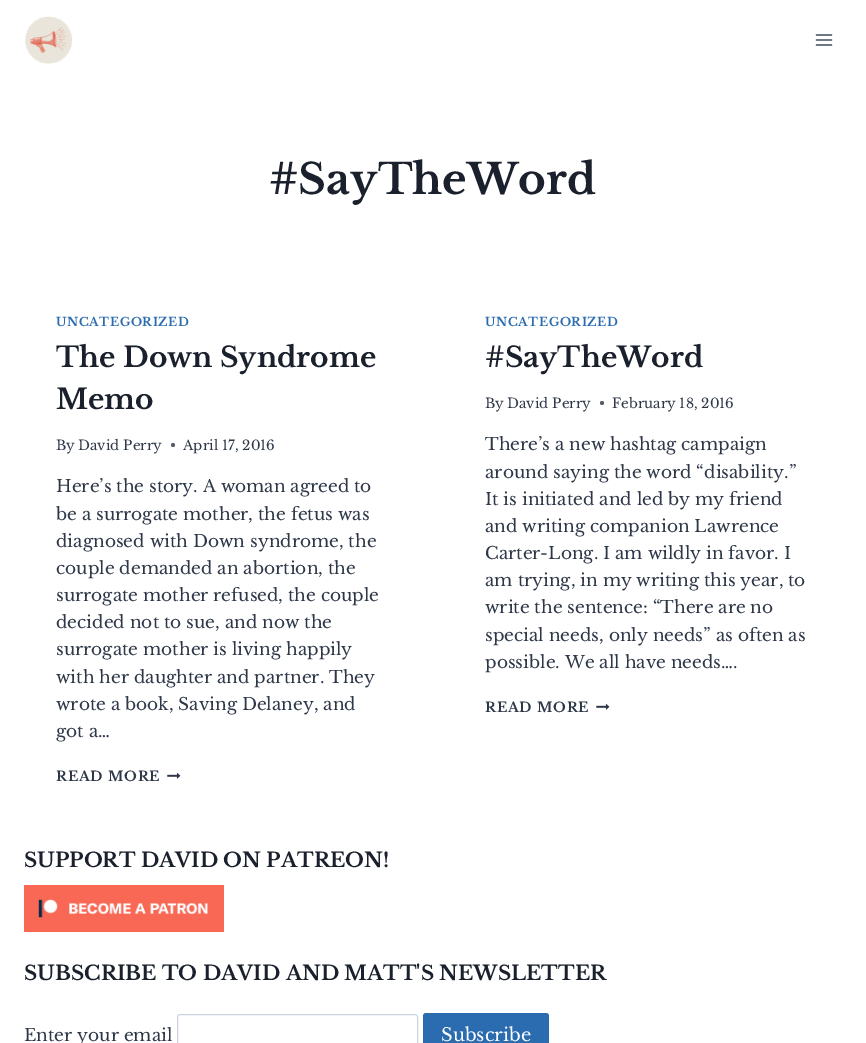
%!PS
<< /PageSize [866 1043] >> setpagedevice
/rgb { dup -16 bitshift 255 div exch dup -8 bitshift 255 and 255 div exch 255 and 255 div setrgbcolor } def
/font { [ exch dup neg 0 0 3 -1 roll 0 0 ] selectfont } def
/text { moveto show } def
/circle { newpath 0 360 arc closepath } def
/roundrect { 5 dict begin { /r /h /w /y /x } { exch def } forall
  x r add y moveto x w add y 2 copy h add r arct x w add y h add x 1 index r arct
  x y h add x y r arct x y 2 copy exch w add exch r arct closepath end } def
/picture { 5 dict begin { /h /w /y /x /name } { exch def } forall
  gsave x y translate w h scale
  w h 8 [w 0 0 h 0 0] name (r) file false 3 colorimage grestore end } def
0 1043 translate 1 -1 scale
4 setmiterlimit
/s1 { /LibreBaskerville-Bold 42 font 16#1A202C rgb } def
/s2 { /LibreBaskerville-Bold 28 font 16#1A202C rgb } def
/s3 { /LibreBaskerville-Regular 13.5 font 16#2D3748 rgb } def
/s4 { /LibreBaskerville-Regular 17 font 16#2D3748 rgb } def
/s5 { /LibreBaskerville-Bold 20 font 16#1A202C rgb } def
/s6 { /LibreBaskerville-Regular 18 font 16#FFFFFF rgb } def
16#FFFFFF rgb
0 0 866 1043 rectfill
(pic1.raw) 25 16 48 48 picture
(pic2.raw) 815 34 18 12 picture
s1
(#SayTheWord) 269 194 text
/LibreBaskerville-Bold 11.9 font
16#2B6CB0 rgb
56 326 moveto 0.6 0 (UNCATEGORIZED) ashow
s2
(The Down Syndrome) 56 367 text
(Memo) 56 409 text
s3
(By) 56 450 text
(David Perry) 78 450 text
16#575F6D rgb
173 445 2 circle fill
s3
(April 17, 2016) 183 450 text
s4
(Here’s the story. A woman agreed to) 56 492 text
(be a surrogate mother, the fetus was) 56 520 text
(diagnosed with Down syndrome, the) 56 547 text
(couple demanded an abortion, the) 56 574 text
(surrogate mother refused, the couple) 56 601 text
(decided not to sue, and now the) 56 628 text
(surrogate mother is living happily) 56 655 text
(with her daughter and partner. They) 56 683 text
(wrote a book, Saving Delaney, and) 56 710 text
(got a…) 56 737 text
/LibreBaskerville-Bold 13.5 font
56 781 moveto 0.75 0 (READ MORE) ashow
(pic3.raw) 167 772 14 7 picture
/LibreBaskerville-Bold 11.9 font
16#2B6CB0 rgb
485 326 moveto 0.6 0 (UNCATEGORIZED) ashow
s2
(#SayTheWord) 485 367 text
s3
(By) 485 408 text
(David Perry) 507 408 text
16#575F6D rgb
602 403 2 circle fill
s3
(February 18, 2016) 612 408 text
s4
(There’s a new hashtag campaign) 485 450 text
(around saying the word “disability.”) 485 478 text
(It is initiated and led by my friend) 485 505 text
(and writing companion Lawrence) 485 532 text
(Carter-Long. I am wildly in favor. I) 485 559 text
(am trying, in my writing this year, to) 485 586 text
(write the sentence: “There are no) 485 613 text
(special needs, only needs” as often as) 485 641 text
(possible. We all have needs….) 485 668 text
/LibreBaskerville-Bold 13.5 font
485 712 moveto 0.75 0 (READ MORE) ashow
(pic3.raw) 596 703 14 7 picture
s5
(SUPPORT DAVID ON PATREON!) 24 867 text
(pic4.raw) 24 885 200 47 picture
(SUBSCRIBE TO DAVID AND MATT'S NEWSLETTER) 24 980 text
s4
(Enter your email) 24 1041 text
16#CBD5E0 rgb
177.5 1014.5 240 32 2.5 roundrect stroke
16#2B6CB0 rgb
423 1013 126 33 3 roundrect fill
s6
(Subscribe) 441 1041 text
showpage
